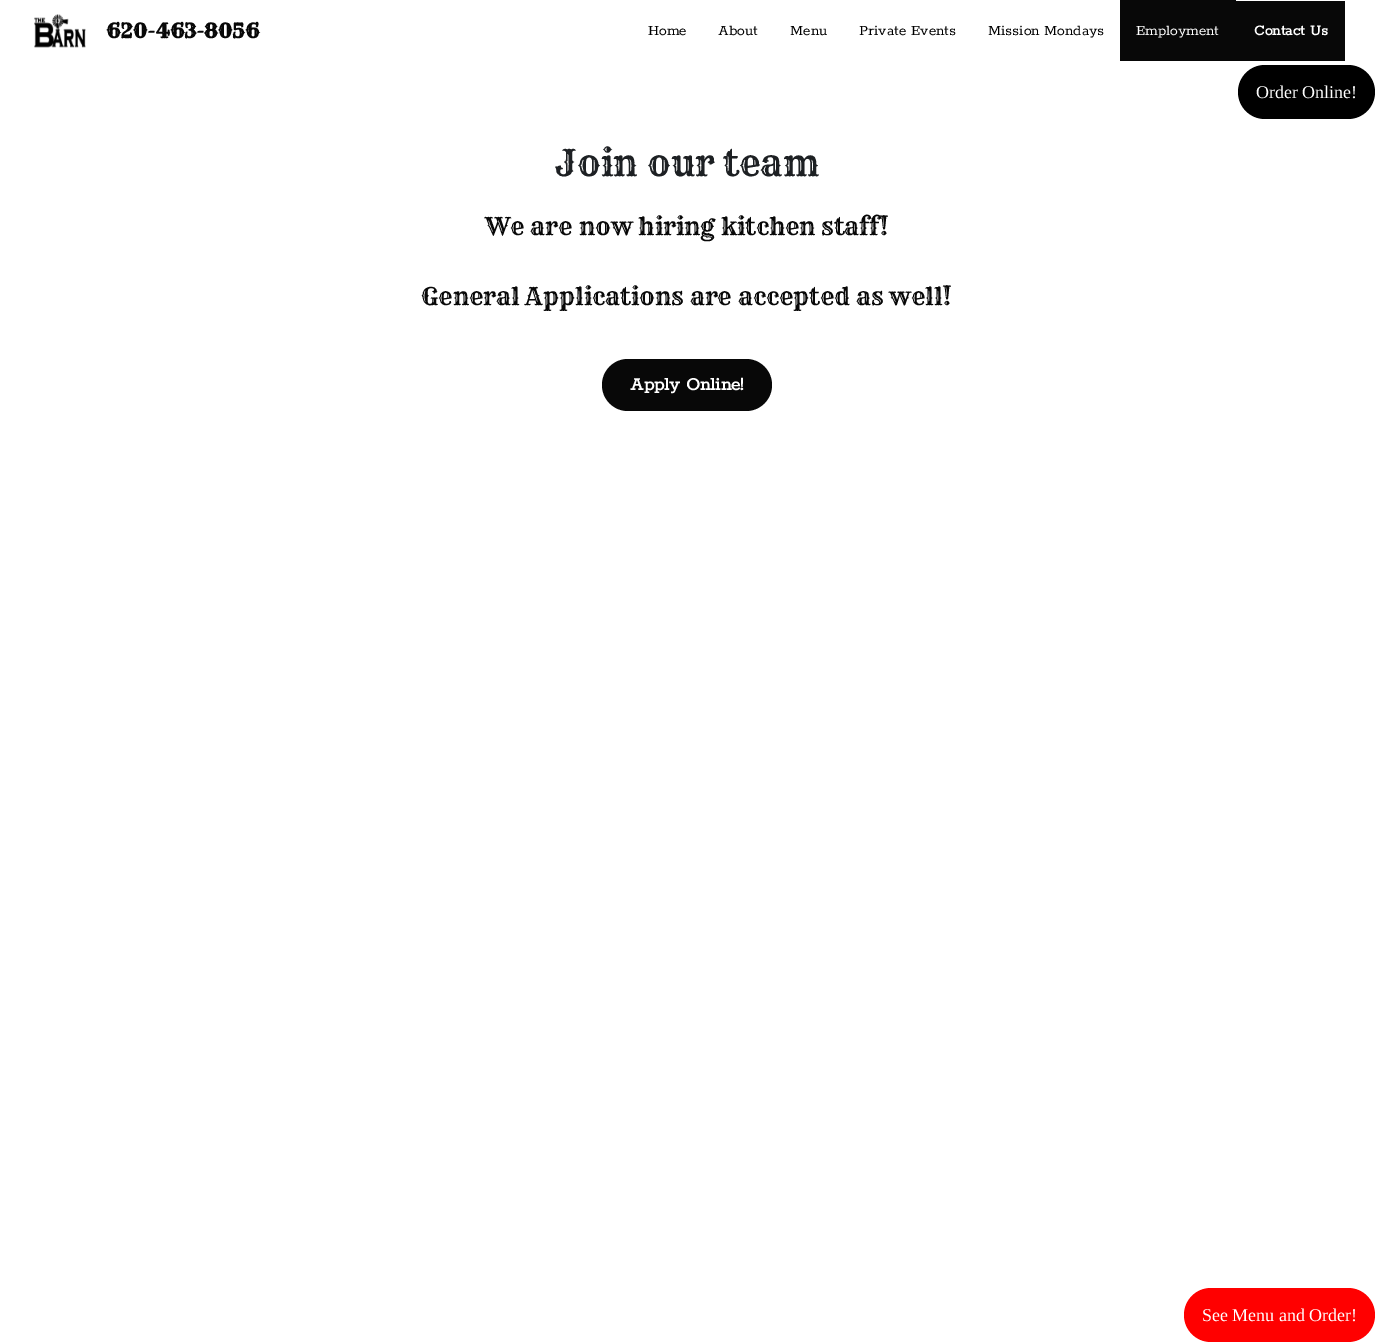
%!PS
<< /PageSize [1375 1342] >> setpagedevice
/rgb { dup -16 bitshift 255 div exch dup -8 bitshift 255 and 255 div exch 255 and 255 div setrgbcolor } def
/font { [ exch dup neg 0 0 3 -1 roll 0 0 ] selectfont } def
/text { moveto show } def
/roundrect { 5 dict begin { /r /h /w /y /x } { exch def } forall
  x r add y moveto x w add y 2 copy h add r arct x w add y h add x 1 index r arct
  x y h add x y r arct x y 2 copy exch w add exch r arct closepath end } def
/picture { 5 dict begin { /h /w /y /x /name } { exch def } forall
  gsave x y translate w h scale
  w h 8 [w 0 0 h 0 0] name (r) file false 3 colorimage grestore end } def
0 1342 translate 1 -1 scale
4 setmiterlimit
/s1 { /Rye-Bold 20 font 16#080808 rgb } def
/s2 { /Rokkitt-Regular 16 font 16#000000 rgb } def
/s3 { /Rokkitt-Regular 16 font 16#FFFFFF rgb } def
/s4 { /Rokkitt-Bold 16 font 16#FFFFFF rgb } def
/s5 { /Rye-Regular 36 font 16#1D2023 rgb } def
/s6 { /Rye-Regular 24 font 16#080808 rgb } def
/s7 { /Rokkitt-Bold 20 font 16#FFFFFF rgb } def
/s8 { /LiberationSerif-Regular 18 font 16#FFFFFF rgb } def
16#FFFFFF rgb
0 0 1375 1342 rectfill
(pic1.raw) 34 14 52 34 picture
s1
(620-463-8056) 106 38 text
s2
(Home) 648 35 text
(About) 718 35 text
(Menu) 790 35 text
(Private Events) 859 35 text
(Mission Mondays) 988 35 text
16#080808 rgb
1120 0 116 61 rectfill
s3
(Employment) 1136 35 text
16#080808 rgb
1236 1 109 60 rectfill
s4
(Contact Us) 1254 35 text
s5
(Join our team) 555 176 text
s6
(We are now hiring kitchen staff!) 485 235 text
(General Applications are accepted as well!) 421 305 text
602 359 170 52 26 roundrect fill
s7
(Apply Online!) 630 390 text
16#000000 rgb
1238 65 137 54 27 roundrect fill
s8
(Order Online!) 1256 98 text
16#FF0000 rgb
1184 1288 191 54 27 roundrect fill
s8
(See Menu and Order!) 1202 1321 text
showpage
